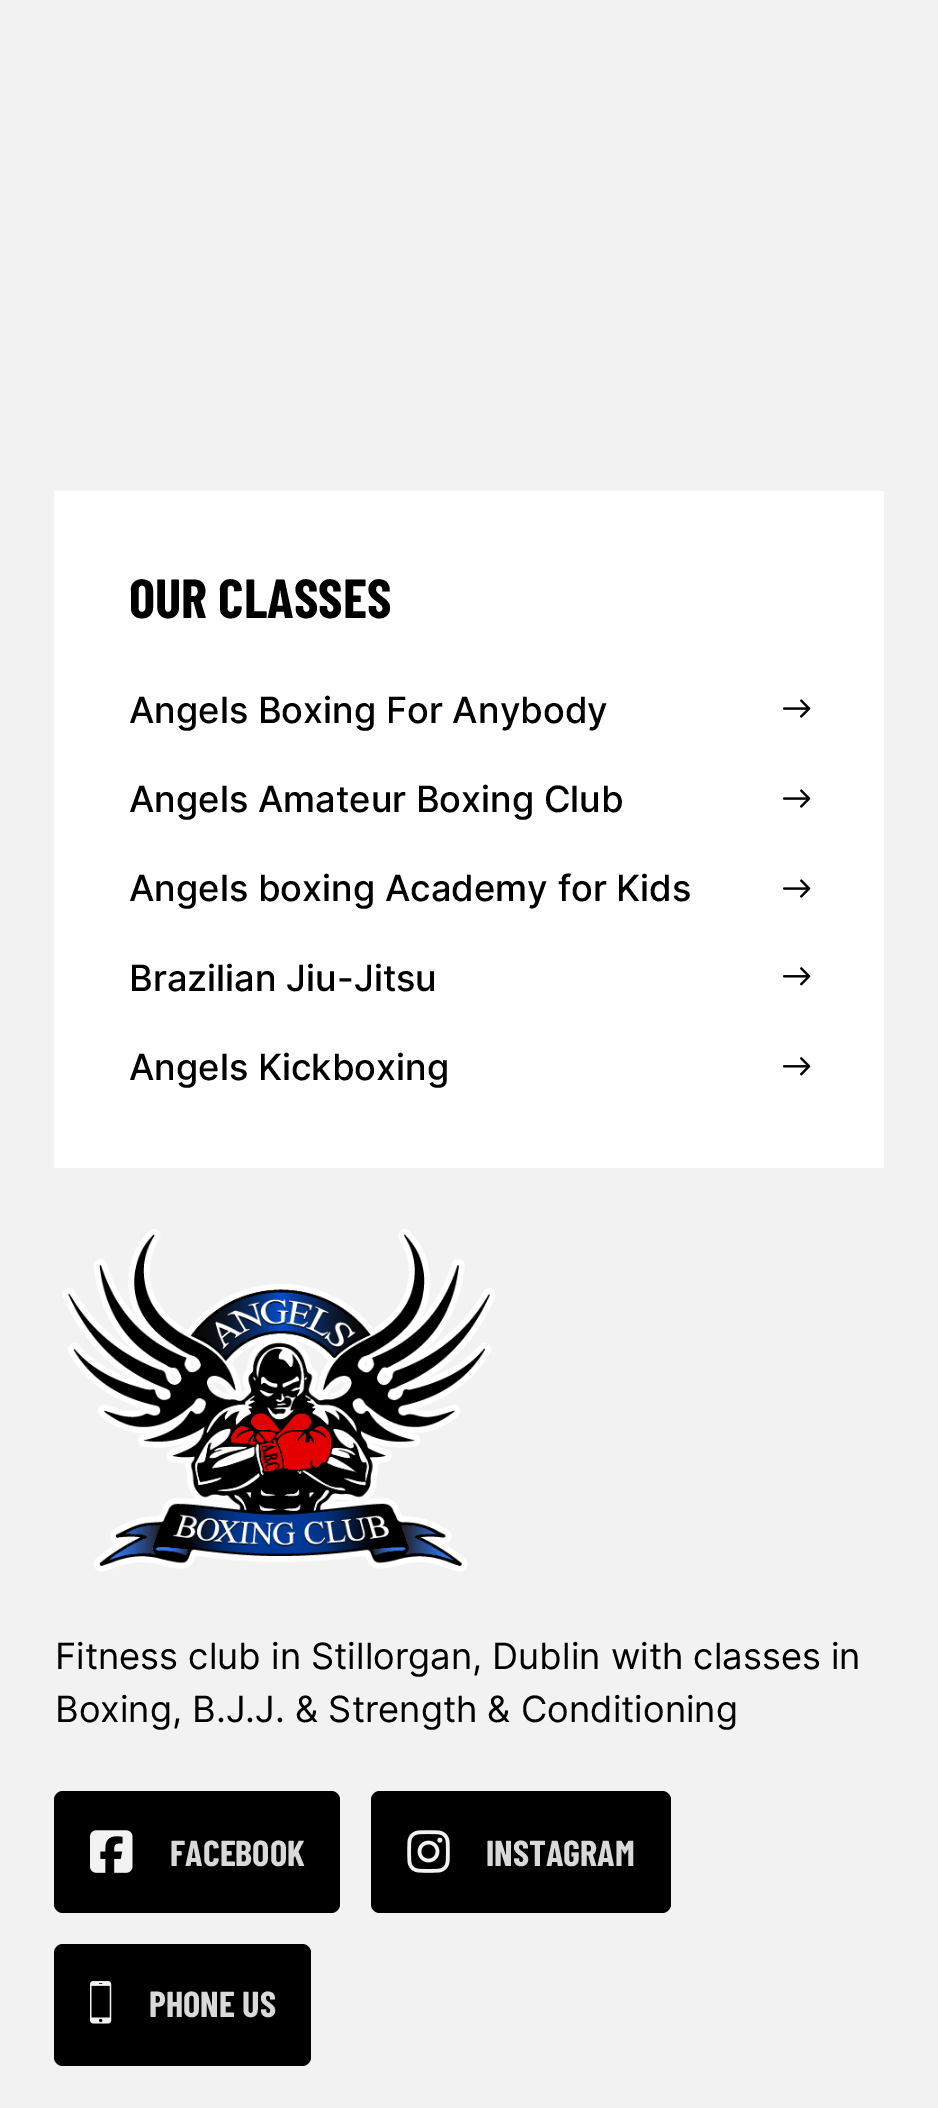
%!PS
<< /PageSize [938 2108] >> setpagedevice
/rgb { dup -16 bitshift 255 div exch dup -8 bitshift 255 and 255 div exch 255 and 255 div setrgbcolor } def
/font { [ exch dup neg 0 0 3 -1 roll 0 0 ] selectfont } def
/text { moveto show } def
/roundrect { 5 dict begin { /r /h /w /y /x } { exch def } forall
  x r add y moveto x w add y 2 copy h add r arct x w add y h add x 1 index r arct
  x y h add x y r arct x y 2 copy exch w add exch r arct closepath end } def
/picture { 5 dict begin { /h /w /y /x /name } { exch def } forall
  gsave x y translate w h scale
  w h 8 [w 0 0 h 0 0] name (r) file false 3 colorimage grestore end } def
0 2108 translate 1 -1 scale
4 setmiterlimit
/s1 { /BarlowCondensed-Bold 55 font 16#000000 rgb } def
/s2 { /Inter-Medium 36.25 font 16#000000 rgb } def
/s3 { /Inter-Regular 36.25 font 16#000000 rgb } def
/s4 { /BarlowCondensed-Bold 36.25 font 16#D9D9D9 rgb } def
16#F2F2F2 rgb
0 0 938 2108 rectfill
16#FFFFFF rgb
54 491 830 677 rectfill
s1
(OUR CLASSES) 129 618 text
s2
(Angels Boxing For Anybody) 129 723 text
(pic1.raw) 783 699 28 19 picture
(Angels Amateur Boxing Club) 129 812 text
(pic1.raw) 783 789 28 19 picture
(Angels boxing Academy for Kids) 129 901 text
(pic1.raw) 783 879 28 19 picture
(Brazilian Jiu-Jitsu) 129 991 text
(pic2.raw) 783 967 28 19 picture
(Angels Kickboxing) 129 1080 text
(pic2.raw) 783 1057 28 19 picture
(pic3.raw) 62 1229 434 343 picture
s3
(Fitness club in Stillorgan, Dublin with classes in) 55 1669 text
(Boxing, B.J.J. & Strength & Conditioning) 55 1722 text
54 1791 286 122 9 roundrect fill
(pic4.raw) 90 1830 43 43 picture
s4
(FACEBOOK) 170 1866 text
16#000000 rgb
371 1791 300 122 9 roundrect fill
(pic5.raw) 407 1830 43 43 picture
s4
(INSTAGRAM) 486 1866 text
16#000000 rgb
54 1944 257 122 9 roundrect fill
(pic6.raw) 90 1981 22 43 picture
s4
(PHONE US) 149 2017 text
showpage
